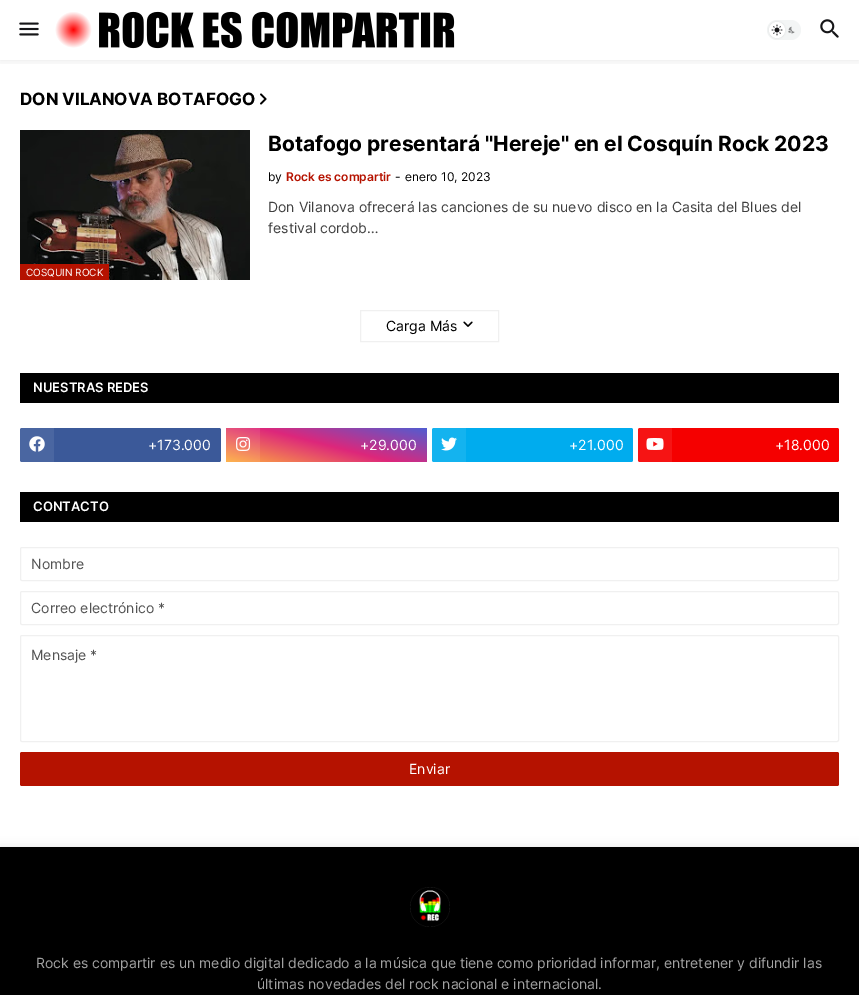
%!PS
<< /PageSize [859 995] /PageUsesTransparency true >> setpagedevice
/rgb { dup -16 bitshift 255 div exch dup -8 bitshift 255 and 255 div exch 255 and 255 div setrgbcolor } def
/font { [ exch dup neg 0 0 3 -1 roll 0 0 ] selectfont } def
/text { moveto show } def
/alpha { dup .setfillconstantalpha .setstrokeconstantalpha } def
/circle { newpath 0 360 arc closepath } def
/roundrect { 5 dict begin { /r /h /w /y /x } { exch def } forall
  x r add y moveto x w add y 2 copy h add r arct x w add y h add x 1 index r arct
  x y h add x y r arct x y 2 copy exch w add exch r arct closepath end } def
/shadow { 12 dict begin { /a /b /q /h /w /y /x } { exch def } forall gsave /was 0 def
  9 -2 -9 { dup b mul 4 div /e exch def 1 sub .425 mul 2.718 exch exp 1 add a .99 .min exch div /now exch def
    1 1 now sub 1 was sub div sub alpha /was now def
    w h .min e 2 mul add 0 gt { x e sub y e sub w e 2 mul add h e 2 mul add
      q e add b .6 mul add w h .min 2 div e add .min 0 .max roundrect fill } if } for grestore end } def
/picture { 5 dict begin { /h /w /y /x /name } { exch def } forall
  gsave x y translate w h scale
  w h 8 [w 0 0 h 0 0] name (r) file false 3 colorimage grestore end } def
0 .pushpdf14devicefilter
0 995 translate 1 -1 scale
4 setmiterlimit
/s1 { /Inter-Bold 17 font 16#000000 rgb } def
/s2 { /Inter-Bold 21 font 16#000000 rgb } def
/s3 { /Inter-Regular 12 font 16#000000 rgb } def
/s4 { /Inter-SemiBold 12 font 16#B51200 rgb } def
/s5 { /Inter-Regular 14 font 16#404040 rgb } def
/s6 { /Inter-Regular 10 font 16#FFFFFF rgb } def
/s7 { /Inter-Regular 14 font 16#000000 rgb } def
/s8 { /Inter-SemiBold 13 font 16#FFFFFF rgb } def
/s9 { /Inter-Regular 14 font 16#FFFFFF rgb } def
/s10 { /Inter-Regular 14 font 16#535353 rgb } def
/s11 { /Inter-Regular 14 font 16#A2A2A2 rgb } def
16#FFFFFF rgb
0 0 859 995 rectfill
gsave
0 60 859 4 rectclip
16#000000 rgb
0 0 859 60 0 5 0.1 shadow
grestore
(pic1.raw) 19 22 20 14 picture
(pic2.raw) 55 11 400 38 picture
16#F3F5F5 rgb
767 20 34 20 10 roundrect fill
(pic4.raw) 788 26 7 8 picture
16#000000 rgb
769 22 16 16 8 1 0.1 shadow
16#FFFFFF rgb
777 30 8 circle fill
(pic3.raw) 771 24 12 12 picture
(pic5.raw) 820 19 19 19 picture
s1
(DON VILANOVA BOTAFOGO) 20 105 text
(pic6.raw) 260 93 7 12 picture
s2
(Botafogo presentará "Hereje" en el Cosquín Rock 2023) 268 151 text
s3
(by) 268 181 text
s4
(Rock es compartir) 286 181 text
s3
(-) 395 181 text
(enero 10, 2023) 405 181 text
s5
(Don Vilanova ofrecerá las canciones de su nuevo disco en la Casita del Blues del) 268 212 text
(festival cordob…) 268 233 text
(pic7.raw) 20 130 230 150 picture
16#B51200 rgb
20 264 89 16 rectfill
s6
(COSQUIN ROCK) 26 276 text
16#F0F0F0 rgb
360.5 310.5 138 31 rectstroke
s7
(Carga Más) 386 331 text
(pic8.raw) 463 321 10 6 picture
20 373 819 30 rectfill
s8
(NUESTRAS REDES) 33 392 text
16#3B5999 rgb
20 428 201 34 2 roundrect fill
0.08 alpha
16#FFFFFF rgb
20 428 34 34 rectfill
1 alpha
(pic9.raw) 29 436 16 16 picture
s9
(+173.000) 148 450 text
gsave 226 428 201 34 2 roundrect clip newpath
<< /ShadingType 2 /ColorSpace /DeviceRGB /Coords [316 486 337 404] /Extend [true true] /Function << /FunctionType 3 /Domain [0 1] /Functions [<< /FunctionType 2 /Domain [0 1] /C0 [1 0.694 0.239] /C1 [0.867 0.153 0.482] /N 1 >> << /FunctionType 2 /Domain [0 1] /C0 [0.867 0.153 0.482] /C1 [0.302 0.369 0.831] /N 1 >>] /Bounds [0.5] /Encode [0 1 0 1] >> >> shfill grestore
0.08 alpha
226 428 34 34 rectfill
1 alpha
(pic10.raw) 236 437 15 14 picture
(+29.000) 360 450 text
16#00ACEE rgb
432 428 201 34 2 roundrect fill
0.08 alpha
16#FFFFFF rgb
432 428 34 34 rectfill
1 alpha
(pic11.raw) 441 437 16 14 picture
(+21.000) 569 450 text
16#F50000 rgb
638 428 201 34 2 roundrect fill
0.08 alpha
16#FFFFFF rgb
638 428 34 34 rectfill
1 alpha
(pic12.raw) 646 438 18 12 picture
(+18.000) 775 450 text
16#000000 rgb
20 492 819 30 rectfill
s8
(CONTACTO) 33 511 text
16#F0F0F0 rgb
20.5 547.5 818 33 1.5 roundrect stroke
s10
(Nombre) 31 569 text
16#F0F0F0 rgb
20.5 591.5 818 33 1.5 roundrect stroke
s10
(Correo electrónico *) 31 613 text
16#F0F0F0 rgb
20.5 635.5 818 106 1.5 roundrect stroke
s10
(Mensaje *) 31 660 text
16#B51200 rgb
20 752 819 34 2 roundrect fill
s9
(Enviar) 409 774 text
16#000000 rgb
0 847 859 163 0 5 0.1 shadow
0 847 859 148 rectfill
(pic13.raw) 410 887 40 40 picture
s11
(Rock es compartir es un medio digital dedicado a la música que tiene como prioridad informar, entretener y difundir las) 36 968 text
(últimas novedades del rock nacional e internacional.) 257 989 text
.poppdf14devicefilter showpage
